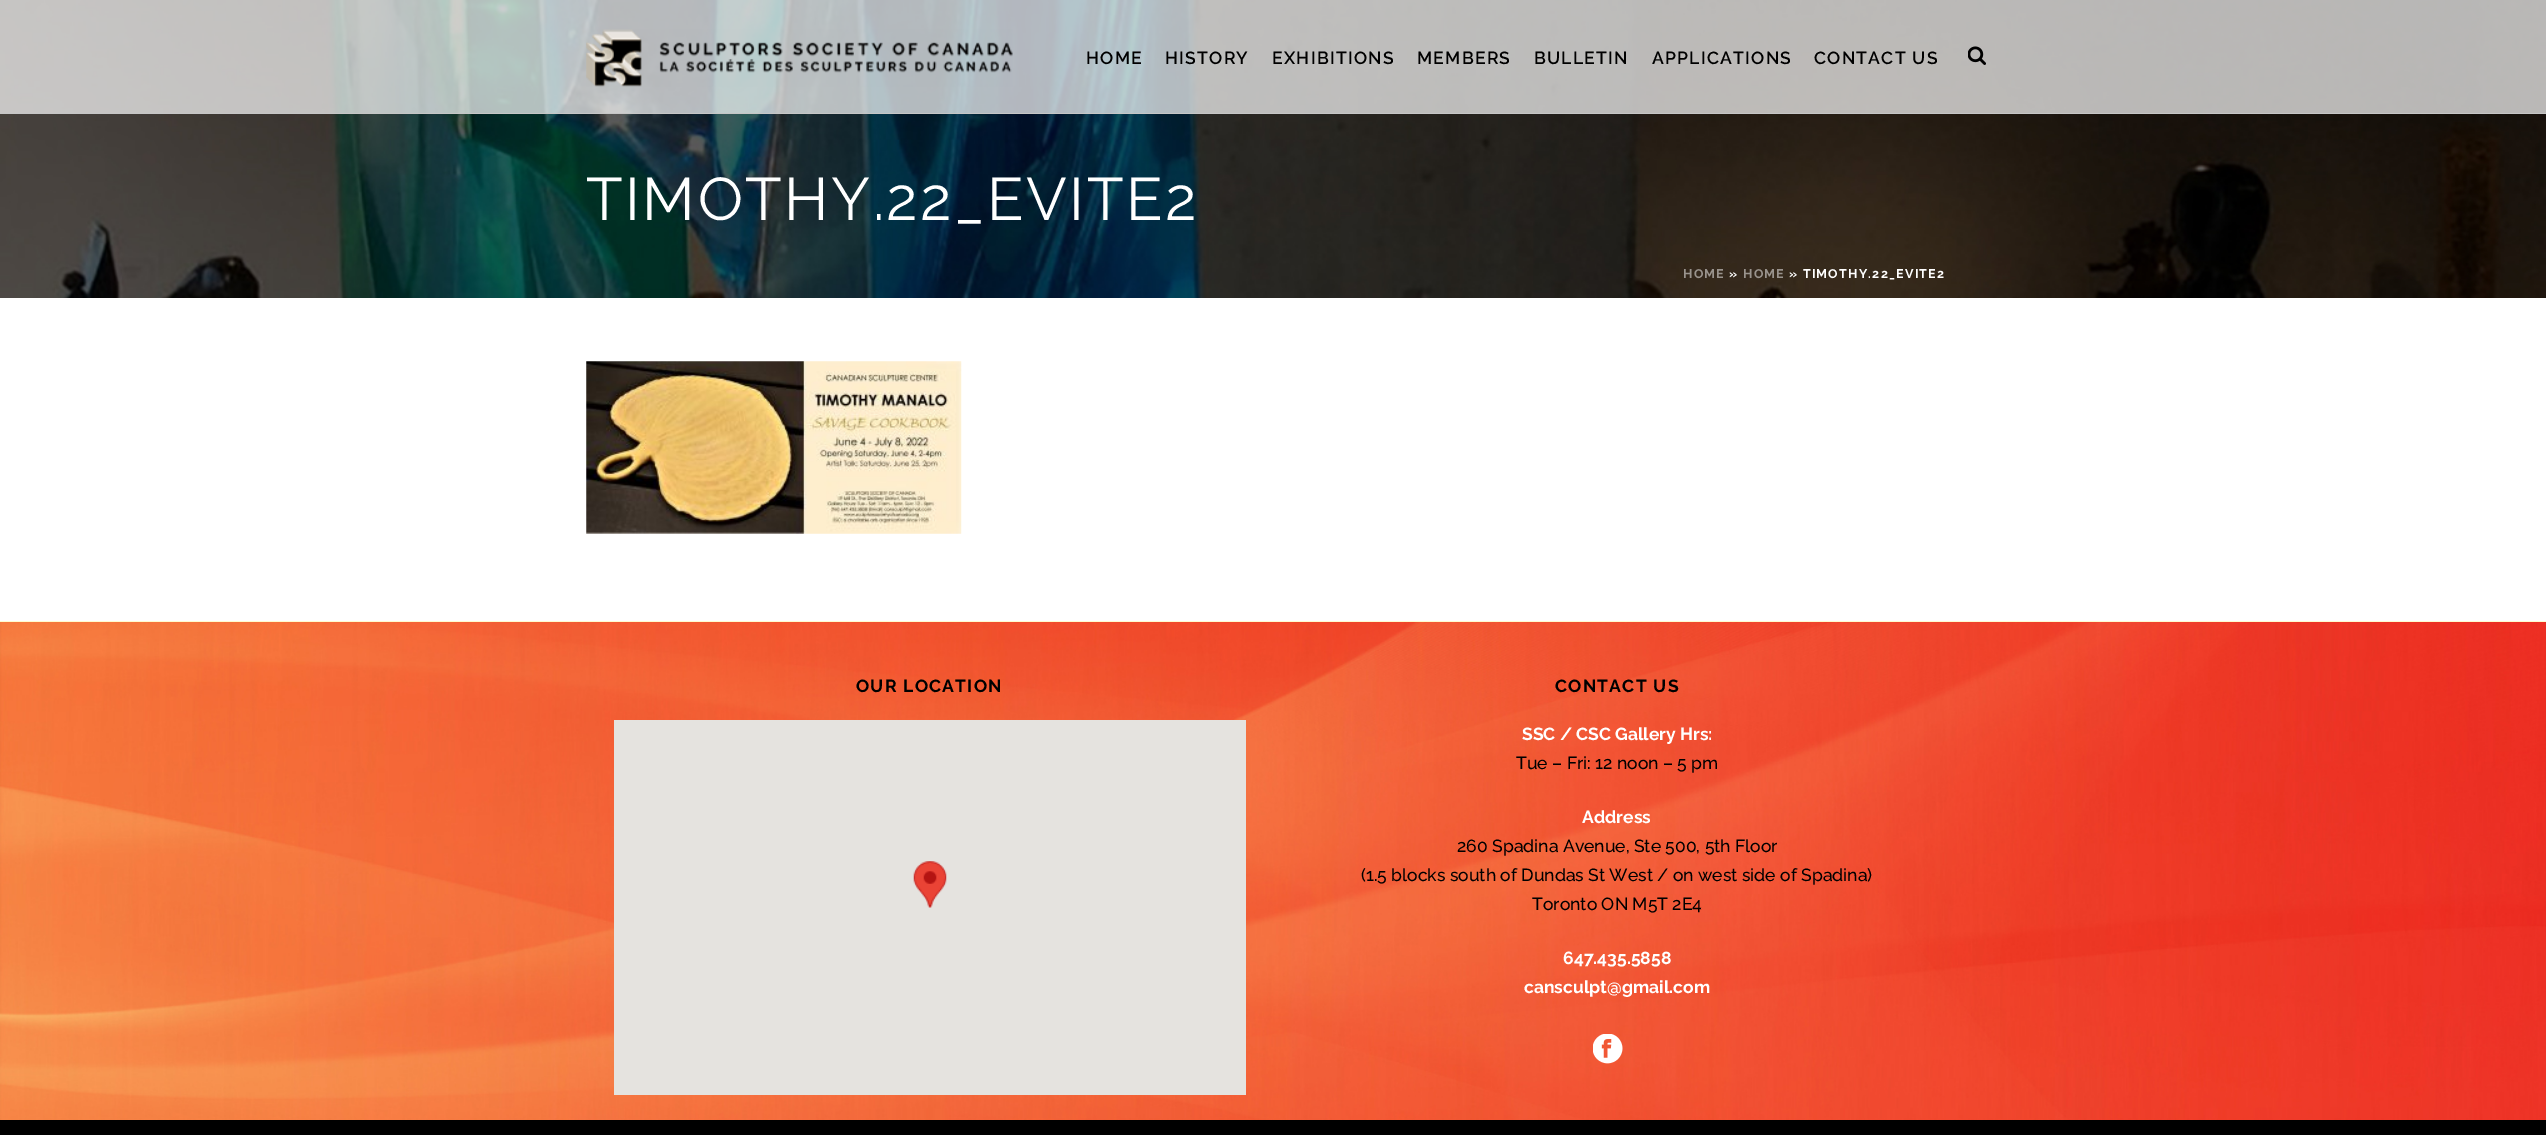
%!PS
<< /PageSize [2546 1135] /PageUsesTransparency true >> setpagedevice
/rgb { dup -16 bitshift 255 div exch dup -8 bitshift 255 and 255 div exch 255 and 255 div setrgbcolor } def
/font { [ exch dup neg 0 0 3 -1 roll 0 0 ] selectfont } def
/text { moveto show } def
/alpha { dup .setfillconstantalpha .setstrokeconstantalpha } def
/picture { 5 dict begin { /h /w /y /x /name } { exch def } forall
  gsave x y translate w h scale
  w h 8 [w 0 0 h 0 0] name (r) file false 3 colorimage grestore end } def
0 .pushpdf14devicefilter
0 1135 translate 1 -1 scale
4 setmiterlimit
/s1 { /Raleway-Bold 17.5 font 16#FFFFFF rgb } def
/s2 { /Raleway-Medium 17.5 font 16#000000 rgb } def
16#FFFFFF rgb
0 0 2546 1135 rectfill
(pic1.raw) 0 0 2546 298 picture
16#C6C6C6 rgb
0 113 2546 1 rectfill
0.7 alpha
16#FFFFFF rgb
0 0 2546 113 rectfill
1 alpha
(pic2.raw) 586 29 427 58 picture
/Raleway-SemiBold 17.5 font
16#000000 rgb
1086 64 moveto 1.25 0 (HOME) ashow
1165 64 moveto 1.25 0 (HISTORY) ashow
1272 64 moveto 1.25 0 (EXHIBITIONS) ashow
1417 64 moveto 1.25 0 (MEMBERS) ashow
1534 64 moveto 1.25 0 (BULLETIN) ashow
1652 64 moveto 1.25 0 (APPLICATIONS) ashow
1814 64 moveto 1.25 0 (CONTACT US) ashow
(pic3.raw) 1968 46 18 19 picture
/Raleway-Regular 60 font
16#FFFFFF rgb
586 220 moveto 2.5 0 (TIMOTHY.22_EVITE2) ashow
/Raleway-Bold 12.5 font
16#99938D rgb
1683 278 moveto 1.25 0 (HOME) ashow
16#FFFFFF rgb
1729 278 moveto 1.25 0 (») ashow
16#99938D rgb
1743 278 moveto 1.25 0 (HOME) ashow
16#FFFFFF rgb
1789 278 moveto 1.25 0 (» TIMOTHY.22_EVITE2) ashow
(pic4.raw) 586 361 376 173 picture
(pic5.raw) 0 622 2546 498 picture
16#FFFCCF rgb
0 621 2546 1 rectfill
/Raleway-Bold 17.5 font
16#000000 rgb
856 692 moveto 1.25 0 (OUR LOCATION) ashow
16#E5E3DF rgb
614 720 632 375 rectfill
(pic6.raw) 913 861 34 47 picture
16#000000 rgb
1555 692 moveto 1.25 0 (CONTACT US) ashow
s1
(SSC / CSC Gallery Hrs:) 1522 740 text
s2
(Tue – Fri: 12 noon – 5 pm) 1516 769 text
s1
(Address) 1582 823 text
s2
(260 Spadina Avenue, Ste 500, 5th Floor) 1457 852 text
(\(1.5 blocks south of Dundas St West / on west side of Spadina\)) 1361 881 text
(Toronto ON M5T 2E4) 1532 910 text
s1
(647.435.5858) 1563 964 text
(cansculpt@gmail.com) 1524 993 text
(pic7.raw) 1593 1034 30 30 picture
16#000000 rgb
0 1120 2546 15 rectfill
.poppdf14devicefilter showpage
